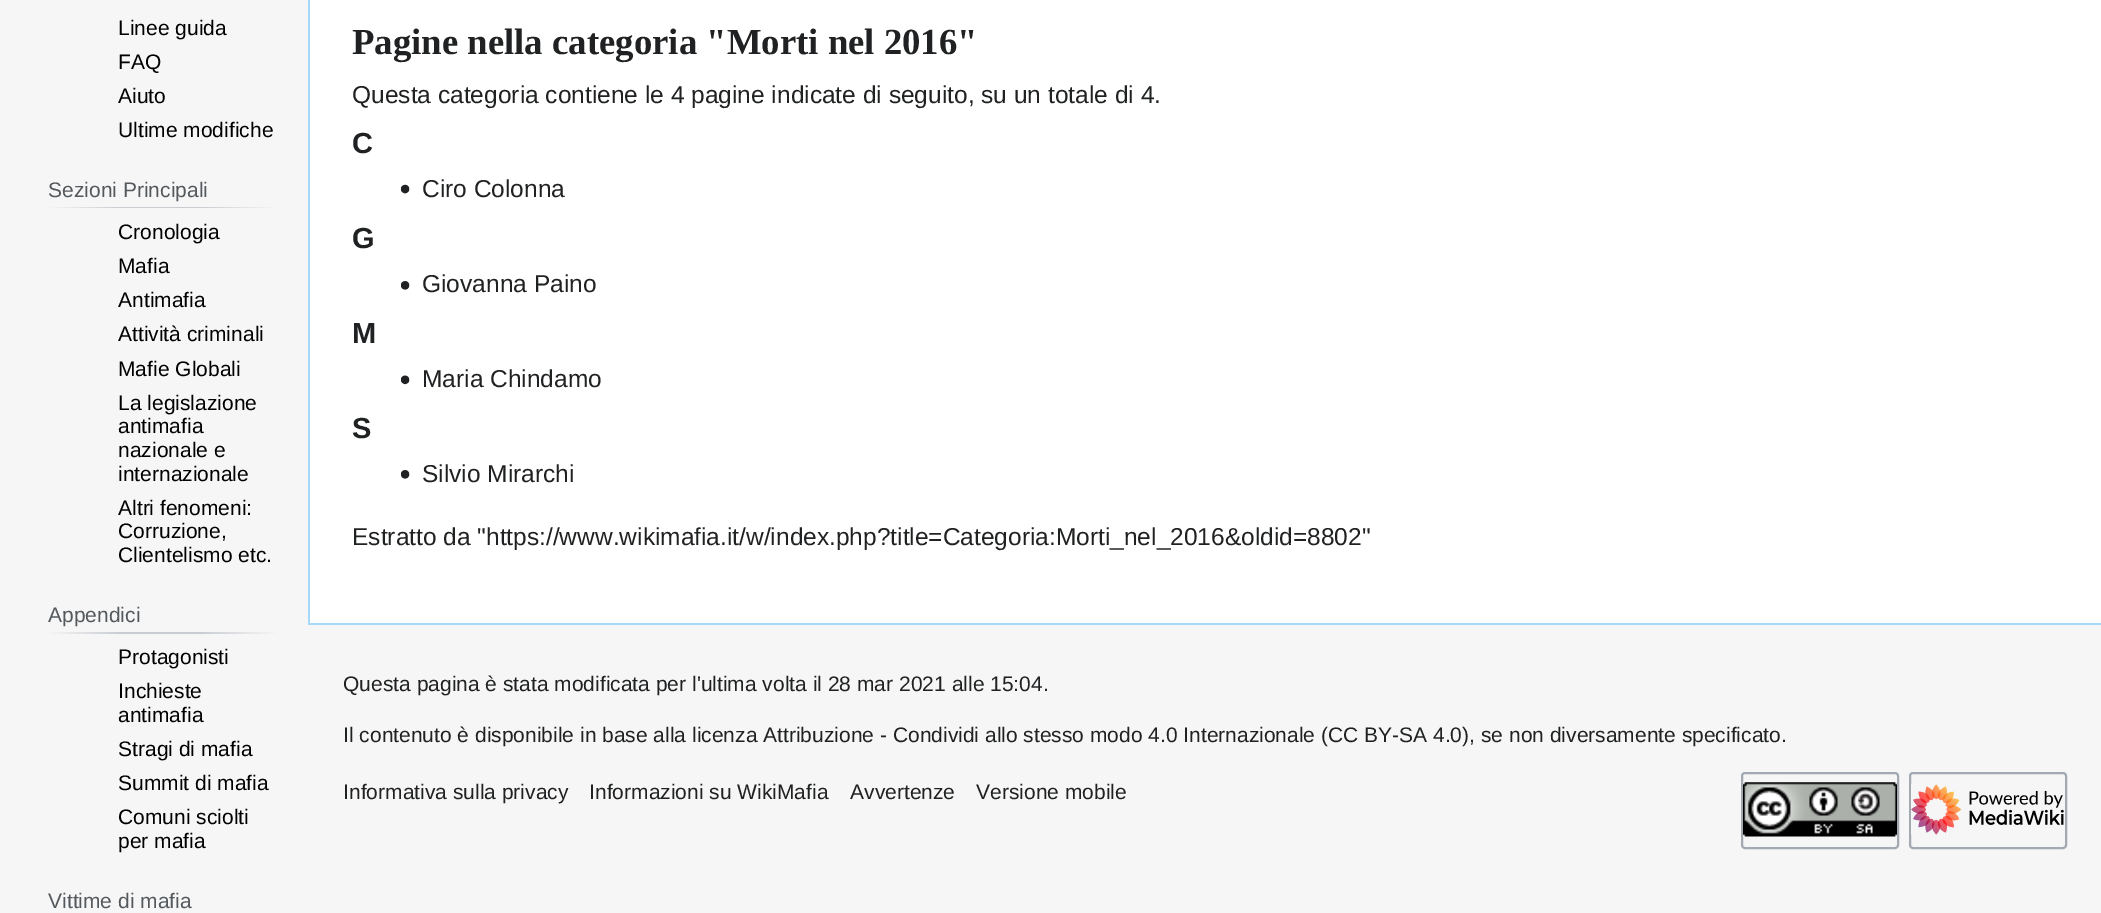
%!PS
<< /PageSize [2101 913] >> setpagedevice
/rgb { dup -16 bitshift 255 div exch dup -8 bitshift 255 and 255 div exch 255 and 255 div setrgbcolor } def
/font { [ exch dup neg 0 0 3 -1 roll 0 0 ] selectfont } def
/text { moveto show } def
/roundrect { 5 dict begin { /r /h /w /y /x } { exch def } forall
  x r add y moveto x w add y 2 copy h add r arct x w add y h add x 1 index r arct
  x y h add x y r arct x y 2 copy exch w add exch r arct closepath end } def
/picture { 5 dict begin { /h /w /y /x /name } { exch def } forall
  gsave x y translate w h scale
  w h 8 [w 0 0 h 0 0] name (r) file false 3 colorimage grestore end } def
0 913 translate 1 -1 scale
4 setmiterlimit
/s1 { /LiberationSans-Regular 21 font 16#000000 rgb } def
/s2 { /LiberationSans-Regular 21 font 16#54595D rgb } def
/s3 { /LiberationSerif-Bold 36.75 font 16#202122 rgb } def
/s4 { /LiberationSans-Regular 24.5 font 16#202122 rgb } def
/s5 { /LiberationSans-Bold 29 font 16#202122 rgb } def
/s6 { /LiberationSans-Regular 21 font 16#202122 rgb } def
16#F6F6F6 rgb
0 0 2101 913 rectfill
s1
(Linee guida) 118 35 text
(FAQ) 118 69 text
(Aiuto) 118 103 text
(Ultime modifiche) 118 137 text
gsave 47 207 moveto 277 207 lineto 277 208 lineto 47 208 lineto closepath clip newpath
<< /ShadingType 2 /ColorSpace /DeviceRGB /Coords [47 207 277 207] /Extend [true true] /Function << /FunctionType 3 /Domain [0 1] /Functions [<< /FunctionType 2 /Domain [0 1] /C0 [0.965 0.965 0.965] /C1 [0.784 0.8 0.82] /N 1 >> << /FunctionType 2 /Domain [0 1] /C0 [0.784 0.8 0.82] /C1 [0.784 0.8 0.82] /N 1 >> << /FunctionType 2 /Domain [0 1] /C0 [0.784 0.8 0.82] /C1 [0.965 0.965 0.965] /N 1 >>] /Bounds [0.33 0.66] /Encode [0 1 0 1 0 1] >> >> shfill grestore
s2
(Sezioni Principali) 48 197 text
s1
(Cronologia) 118 239 text
(Mafia) 118 273 text
(Antimafia) 118 307 text
(Attività criminali) 118 341 text
(Mafie Globali) 118 376 text
(La legislazione) 118 410 text
(antimafia) 118 433 text
(nazionale e) 118 457 text
(internazionale) 118 481 text
(Altri fenomeni:) 118 515 text
(Corruzione,) 118 538 text
(Clientelismo etc.) 118 562 text
gsave 47 632 moveto 277 632 lineto 277 634 lineto 47 634 lineto closepath clip newpath
<< /ShadingType 2 /ColorSpace /DeviceRGB /Coords [47 633 277 633] /Extend [true true] /Function << /FunctionType 3 /Domain [0 1] /Functions [<< /FunctionType 2 /Domain [0 1] /C0 [0.965 0.965 0.965] /C1 [0.784 0.8 0.82] /N 1 >> << /FunctionType 2 /Domain [0 1] /C0 [0.784 0.8 0.82] /C1 [0.784 0.8 0.82] /N 1 >> << /FunctionType 2 /Domain [0 1] /C0 [0.784 0.8 0.82] /C1 [0.965 0.965 0.965] /N 1 >>] /Bounds [0.33 0.66] /Encode [0 1 0 1 0 1] >> >> shfill grestore
s2
(Appendici) 48 622 text
s1
(Protagonisti) 118 664 text
(Inchieste) 118 698 text
(antimafia) 118 722 text
(Stragi di mafia) 118 756 text
(Summit di mafia) 118 790 text
(Comuni sciolti) 118 824 text
(per mafia) 118 848 text
s2
(Vittime di mafia) 48 908 text
16#FFFFFF rgb
310 0 1791 623 rectfill
16#A7D7F9 rgb
308 623 1793 2 rectfill
308 0 2 625 rectfill
s3
(Pagine nella categoria "Morti nel 2016") 352 54 text
s4
(Questa categoria contiene le 4 pagine indicate di seguito, su un totale di 4.) 352 103 text
s5
(C) 352 153 text
(pic1.raw) 401 184 9 10 picture
s4
(Ciro Colonna) 422 197 text
s5
(G) 352 248 text
(pic2.raw) 401 281 9 9 picture
s4
(Giovanna Paino) 422 292 text
s5
(M) 352 343 text
(pic3.raw) 401 375 9 10 picture
s4
(Maria Chindamo) 422 387 text
s5
(S) 352 438 text
(pic2.raw) 401 470 9 9 picture
s4
(Silvio Mirarchi) 422 482 text
(Estratto da "https://www.wikimafia.it/w/index.php?title=Categoria:Morti_nel_2016&oldid=8802") 352 545 text
s6
(Questa pagina è stata modificata per l'ultima volta il 28 mar 2021 alle 15:04.) 343 691 text
(Il contenuto è disponibile in base alla licenza Attribuzione - Condividi allo stesso modo 4.0 Internazionale \(CC BY-SA 4.0\), se non diversamente specificato.) 343 742 text
(Informativa sulla privacy) 343 799 text
(Informazioni su WikiMafia) 589 799 text
(Avvertenze) 850 799 text
(Versione mobile) 976 799 text
16#A2A9B1 rgb
2 setlinewidth
1742 773 156 75 3 roundrect stroke
(pic4.raw) 1743 782 154 55 picture
1910 773 156 75 3 roundrect stroke
(pic5.raw) 1911 784 153 51 picture
showpage
